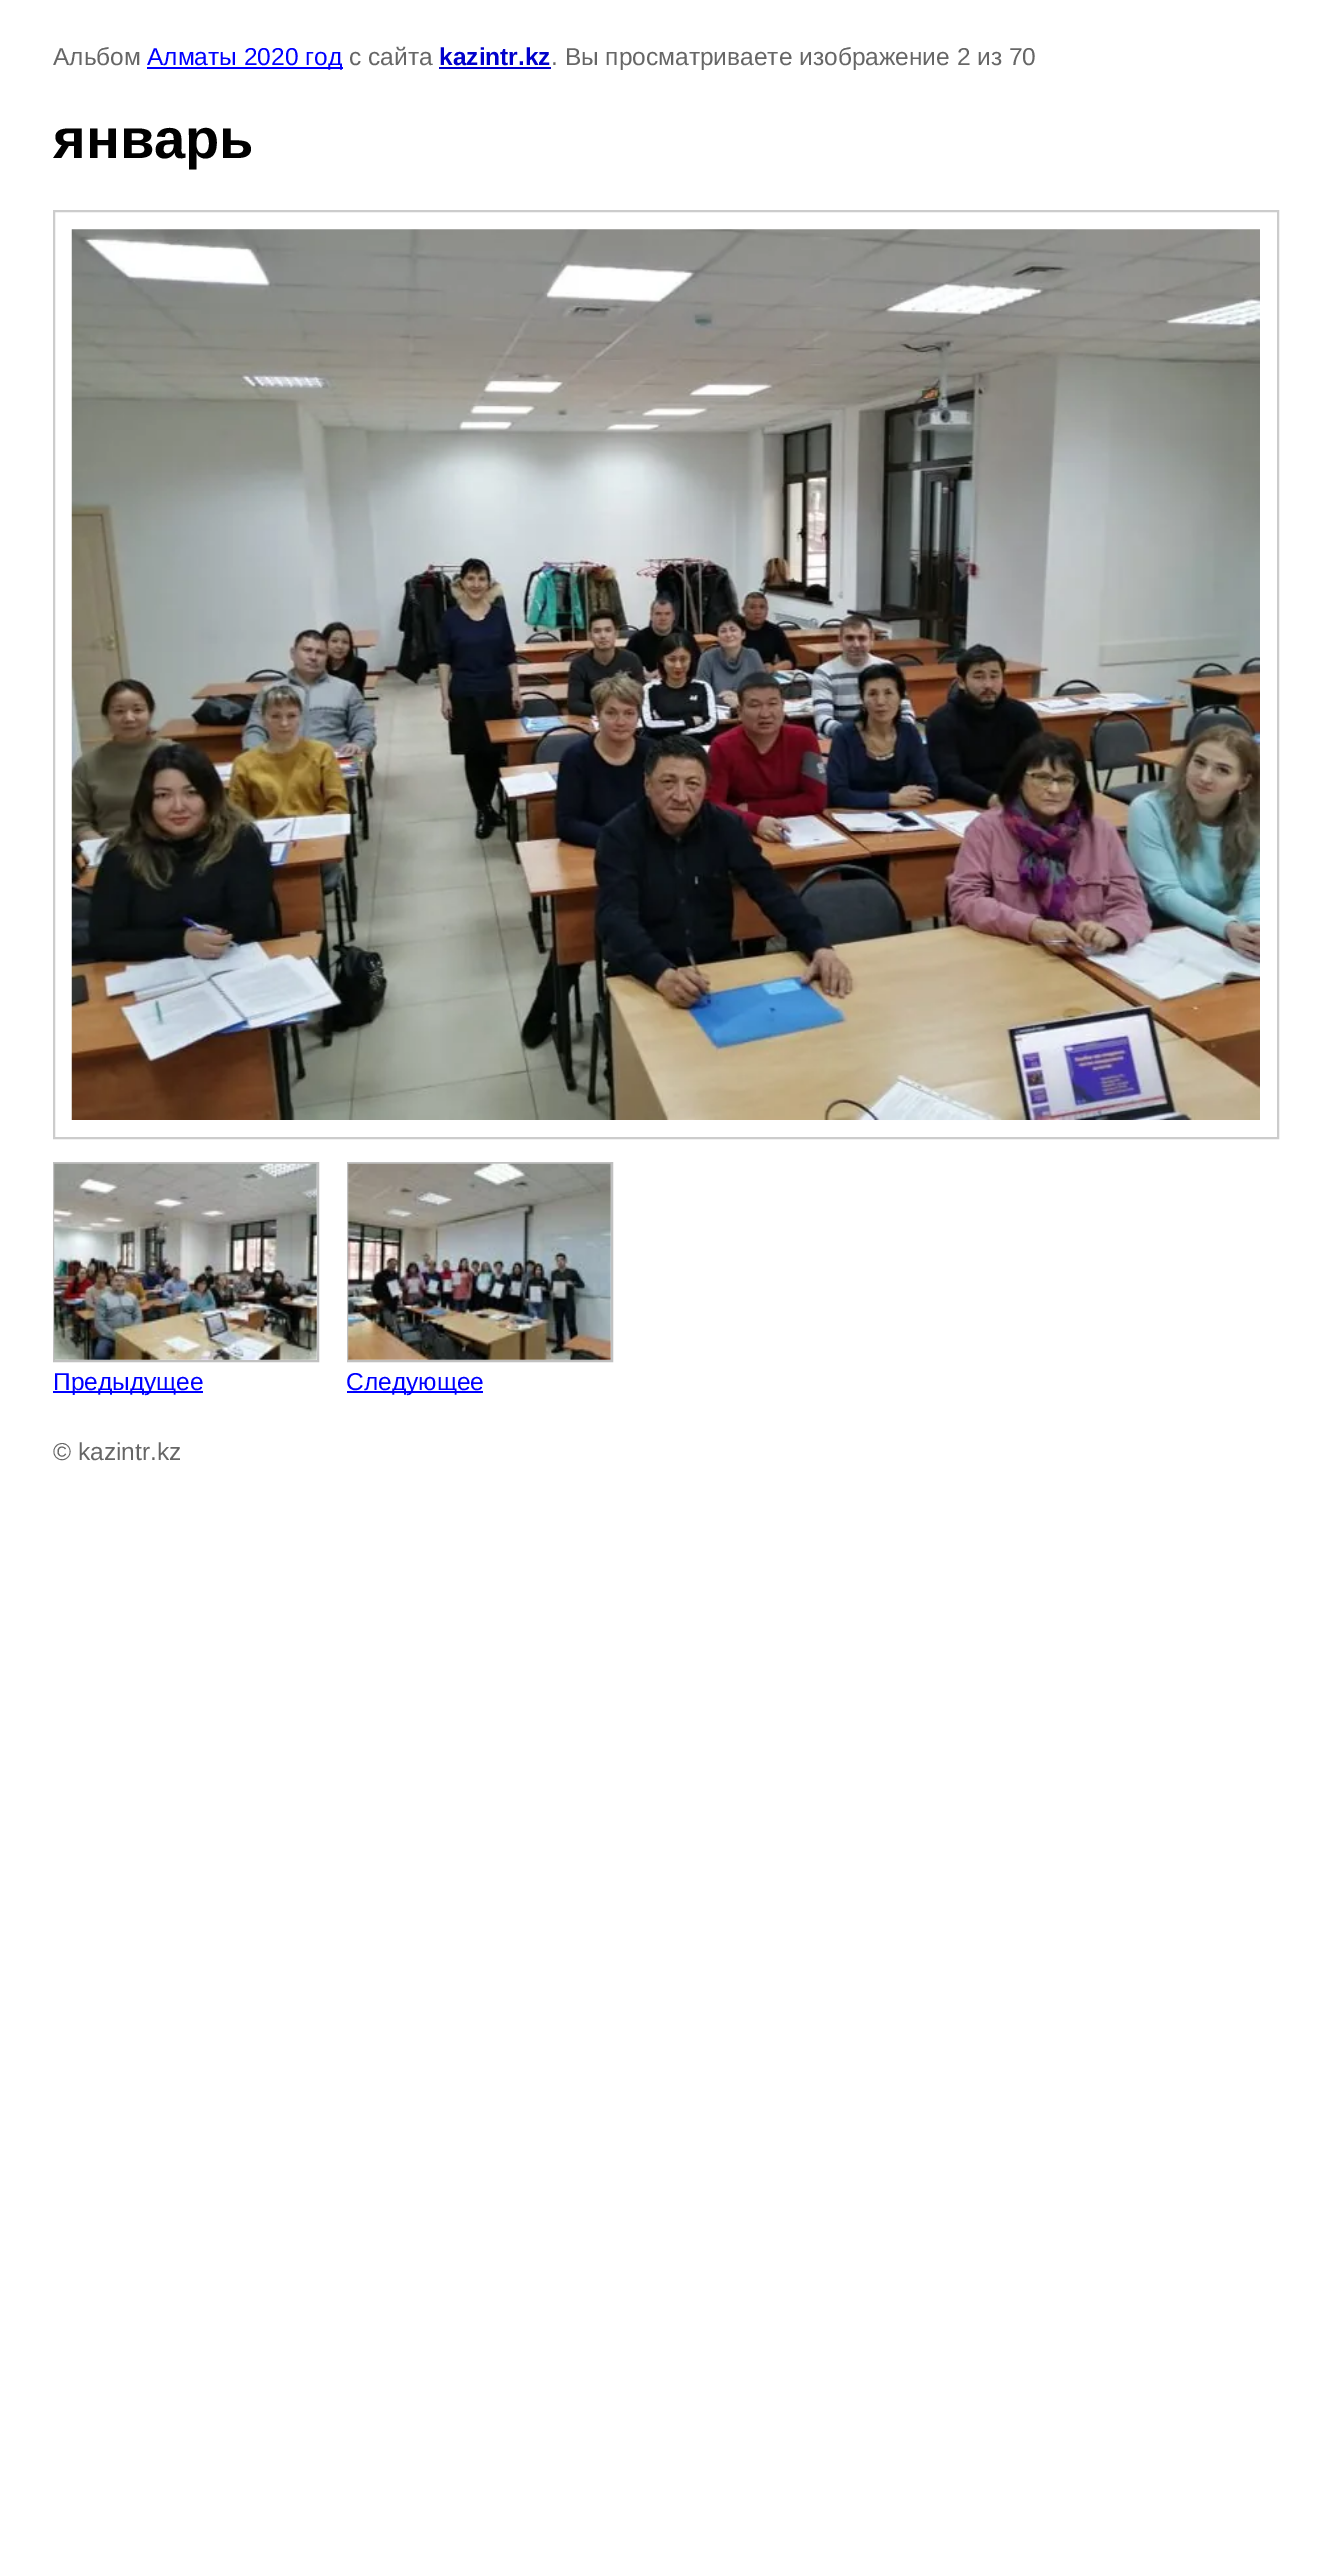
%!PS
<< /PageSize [1331 2561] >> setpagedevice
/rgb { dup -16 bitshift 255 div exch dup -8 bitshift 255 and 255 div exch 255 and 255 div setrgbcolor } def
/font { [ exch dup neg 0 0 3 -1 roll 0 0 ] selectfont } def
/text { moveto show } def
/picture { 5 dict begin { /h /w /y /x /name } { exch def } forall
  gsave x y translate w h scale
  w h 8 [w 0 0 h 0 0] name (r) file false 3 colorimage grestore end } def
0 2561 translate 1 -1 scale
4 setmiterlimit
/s1 { /LiberationSans-Regular 24.5 font 16#666666 rgb } def
/s2 { /LiberationSans-Regular 24.5 font 16#0000FF rgb } def
/s3 { /LiberationSans-Bold 24.5 font 16#0000CC rgb } def
/s4 { /LiberationSans-Bold 56 font 16#000000 rgb } def
16#FFFFFF rgb
0 0 1331 2561 rectfill
s1
(Альбом) 53 65 text
16#0000FF rgb
147 67 196 2 rectfill
(Алматы 2020 год) 147 65 text
s1
(с сайта) 349 65 text
s3
(kazintr.kz) 439 65 text
439 67 112 2 rectfill
s1
(. Вы просматриваете изображение 2 из 70) 551 65 text
s4
(январь) 53 158 text
16#CCCCCC rgb
2 setlinewidth
54 211 1224 927 rectstroke
(pic1.raw) 71 229 1189 891 picture
16#C0C0C0 rgb
54 1163 264 198 rectstroke
(pic2.raw) 54 1163 263 197 picture
16#0000FF rgb
53 1391 150 2 rectfill
s2
(Предыдущее) 53 1390 text
16#C0C0C0 rgb
348 1163 264 198 rectstroke
(pic3.raw) 348 1163 263 197 picture
16#0000FF rgb
347 1391 136 2 rectfill
(Следующее) 346 1390 text
s1
(© kazintr.kz) 53 1460 text
showpage
